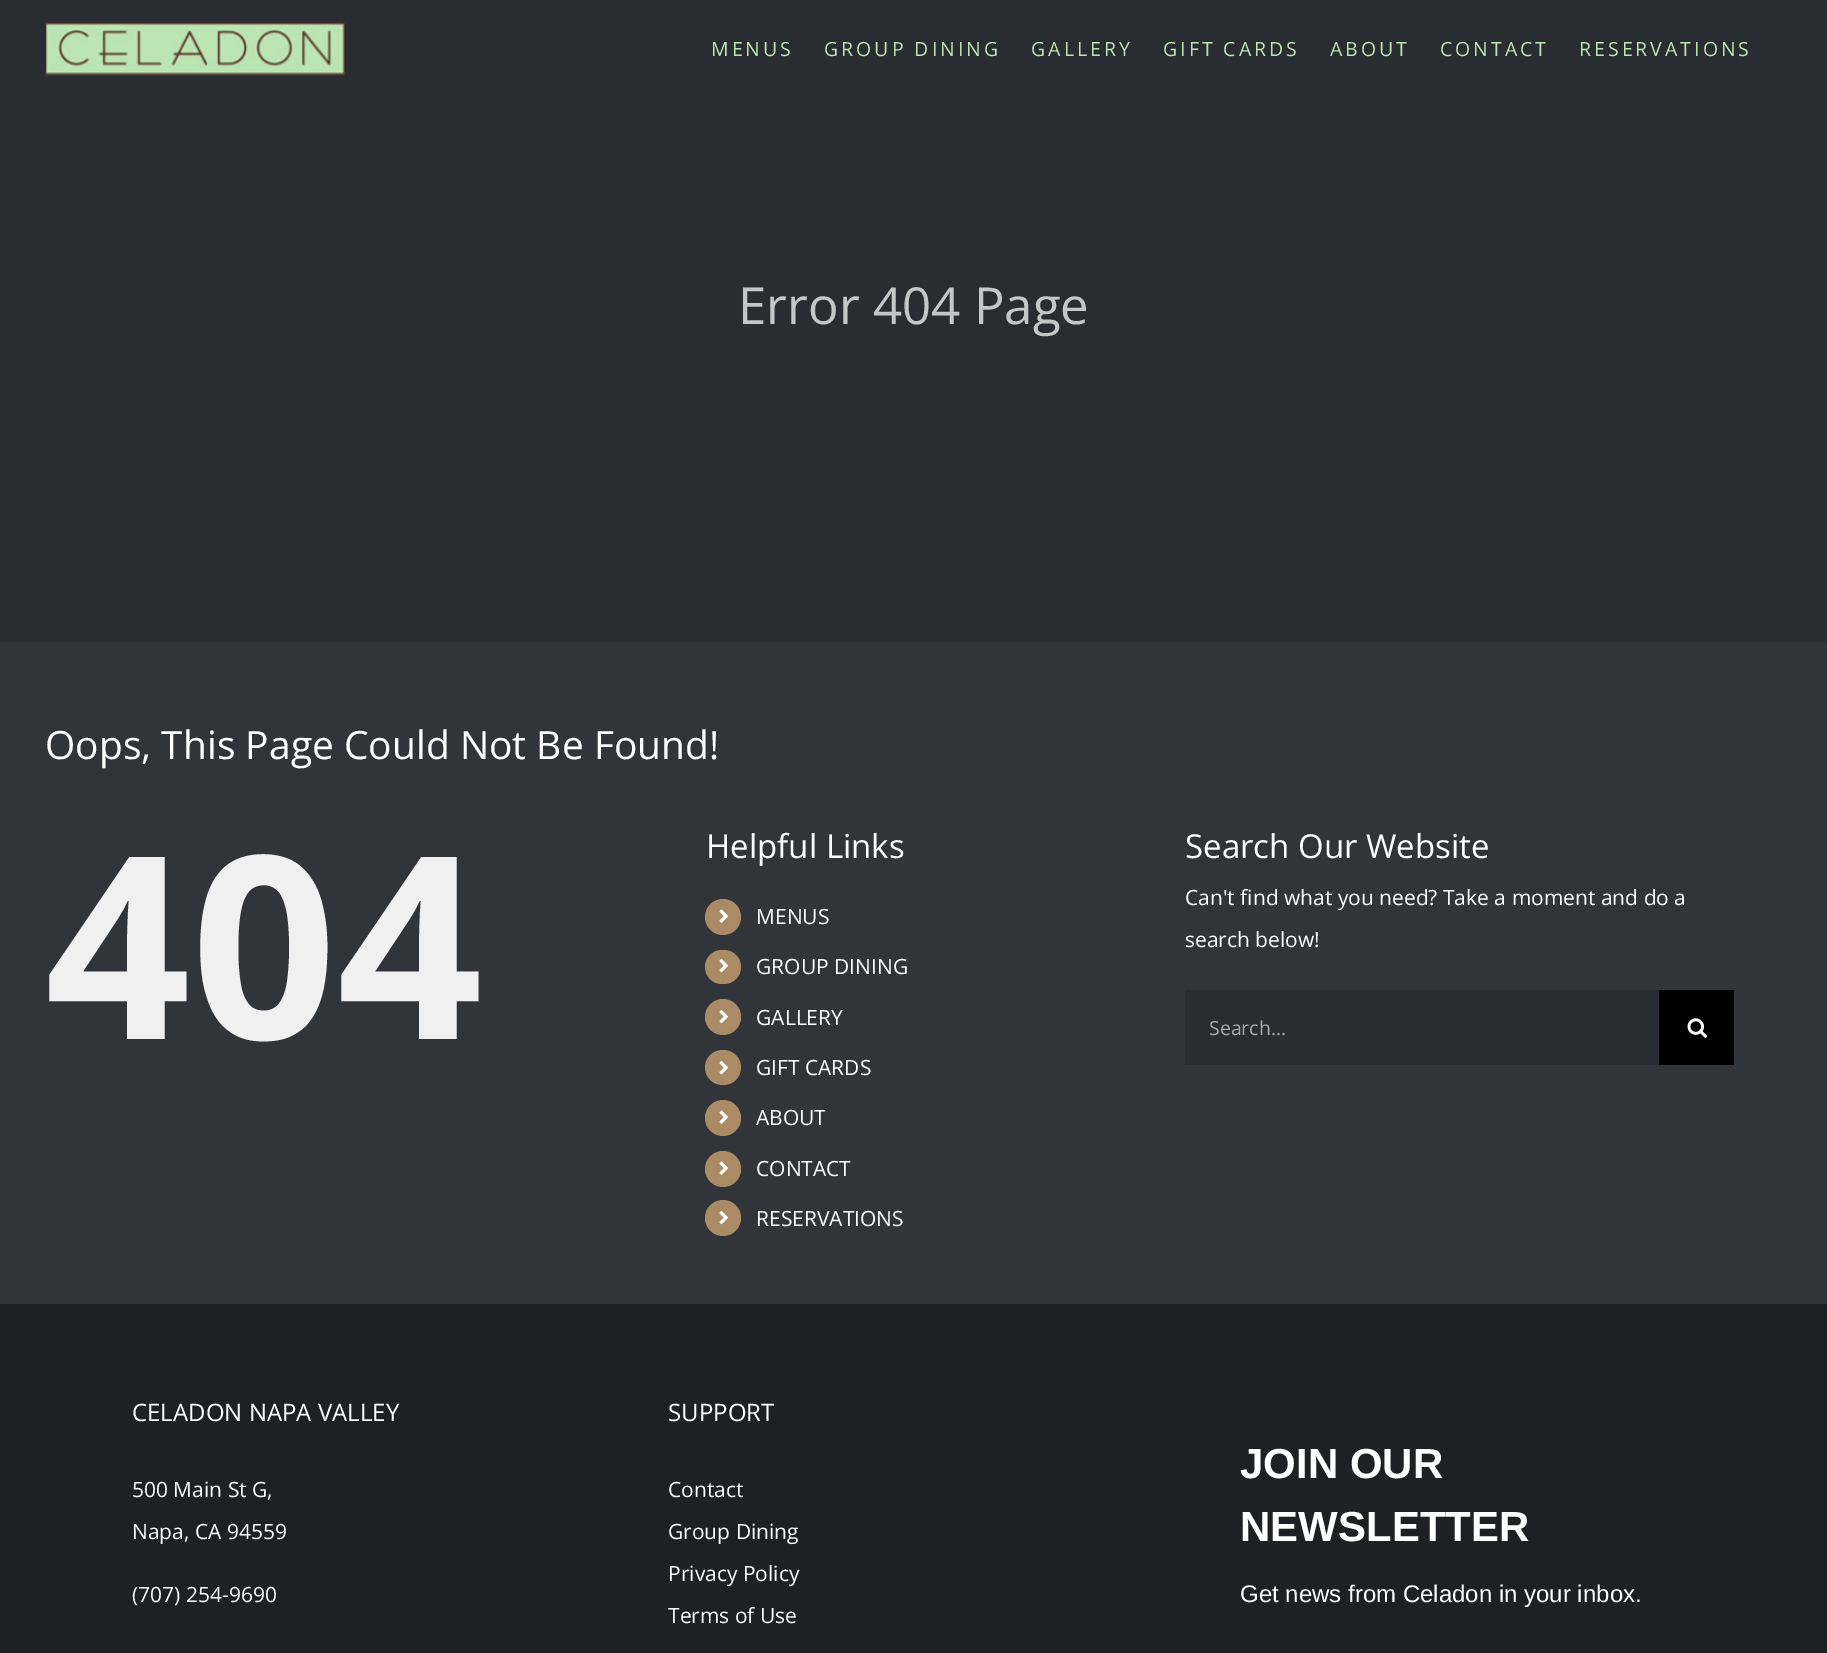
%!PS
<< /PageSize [1827 1653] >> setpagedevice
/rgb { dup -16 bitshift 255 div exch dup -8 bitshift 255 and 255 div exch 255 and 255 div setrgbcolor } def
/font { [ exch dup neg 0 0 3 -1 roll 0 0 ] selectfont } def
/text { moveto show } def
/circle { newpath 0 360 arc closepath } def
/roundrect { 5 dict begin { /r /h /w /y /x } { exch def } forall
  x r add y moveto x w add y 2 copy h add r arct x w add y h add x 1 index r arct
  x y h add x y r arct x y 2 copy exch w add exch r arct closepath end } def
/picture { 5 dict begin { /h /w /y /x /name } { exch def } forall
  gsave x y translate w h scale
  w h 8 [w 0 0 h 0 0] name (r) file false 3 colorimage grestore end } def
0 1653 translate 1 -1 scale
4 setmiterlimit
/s1 { /OpenSans-Regular 51 font 16#C5C6C7 rgb } def
/s2 { /OpenSans-Regular 39 font 16#FFFFFF rgb } def
/s3 { /OpenSans-Bold 255 font 16#F0F0F0 rgb } def
/s4 { /OpenSans-Regular 33 font 16#FFFFFF rgb } def
/s5 { /OpenSans-Regular 21 font 16#FFFFFF rgb } def
/s6 { /OpenSans-Regular 19.5 font 16#AAA9A9 rgb } def
/s7 { /OpenSans-Regular 24 font 16#FFFFFF rgb } def
/s8 { /LiberationSans-Bold 42 font 16#FFFFFF rgb } def
/s9 { /LiberationSans-Regular 24 font 16#FFFFFF rgb } def
16#292C30 rgb
0 0 1827 1653 rectfill
(pic1.raw) 45 22 300 54 picture
/OpenSans-Regular 19.5 font
16#BBE5B3 rgb
711 56 moveto 3 0 (MENUS) ashow
824 56 moveto 3 0 (GROUP DINING) ashow
1031 56 moveto 3 0 (GALLERY) ashow
1163 56 moveto 3 0 (GIFT CARDS) ashow
1330 56 moveto 3 0 (ABOUT) ashow
1440 56 moveto 3 0 (CONTACT) ashow
1579 56 moveto 3 0 (RESERVATIONS) ashow
s1
(Error 404 Page) 738 324 text
16#313539 rgb
0 642 1827 662 rectfill
s2
(Oops, This Page Could Not Be Found!) 45 759 text
s3
(404) 45 1039 text
s4
(Helpful Links) 706 858 text
16#AB8B65 rgb
723 917 18 circle fill
(pic2.raw) 719 909 9 14 picture
s5
(MENUS) 756 924 text
16#AB8B65 rgb
705 950 36 34 17 roundrect fill
(pic3.raw) 719 959 9 14 picture
s5
(GROUP DINING) 756 974 text
16#AB8B65 rgb
723 1017 18 circle fill
(pic3.raw) 719 1010 9 14 picture
s5
(GALLERY) 756 1025 text
16#AB8B65 rgb
705 1050 36 35 17.5 roundrect fill
(pic3.raw) 719 1061 9 14 picture
s5
(GIFT CARDS) 756 1075 text
16#AB8B65 rgb
723 1118 18 circle fill
(pic2.raw) 719 1110 9 14 picture
s5
(ABOUT) 756 1125 text
16#AB8B65 rgb
723 1169 18 circle fill
(pic2.raw) 719 1161 9 14 picture
s5
(CONTACT) 756 1176 text
16#AB8B65 rgb
723 1218 18 circle fill
(pic3.raw) 719 1211 9 14 picture
s5
(RESERVATIONS) 756 1226 text
s4
(Search Our Website) 1185 858 text
s5
(Can't find what you need? Take a moment and do a) 1185 905 text
(search below!) 1185 947 text
16#292C30 rgb
1185 990 474 75 rectfill
s6
(Search...) 1209 1035 text
16#000000 rgb
1659 990 75 75 rectfill
(pic4.raw) 1687 1018 20 20 picture
16#1E2023 rgb
0 1304 1827 349 rectfill
s7
(CELADON NAPA VALLEY) 132 1421 text
s5
(500 Main St G,) 132 1497 text
(Napa, CA 94559) 132 1539 text
(\(707\) 254-9690) 132 1602 text
s7
(SUPPORT) 668 1421 text
s5
(Contact) 668 1497 text
(Group Dining) 668 1539 text
(Privacy Policy) 668 1581 text
(Terms of Use) 668 1623 text
s8
(JOIN OUR) 1240 1478 text
(NEWSLETTER) 1240 1541 text
s9
(Get news from Celadon in your inbox.) 1240 1602 text
showpage
